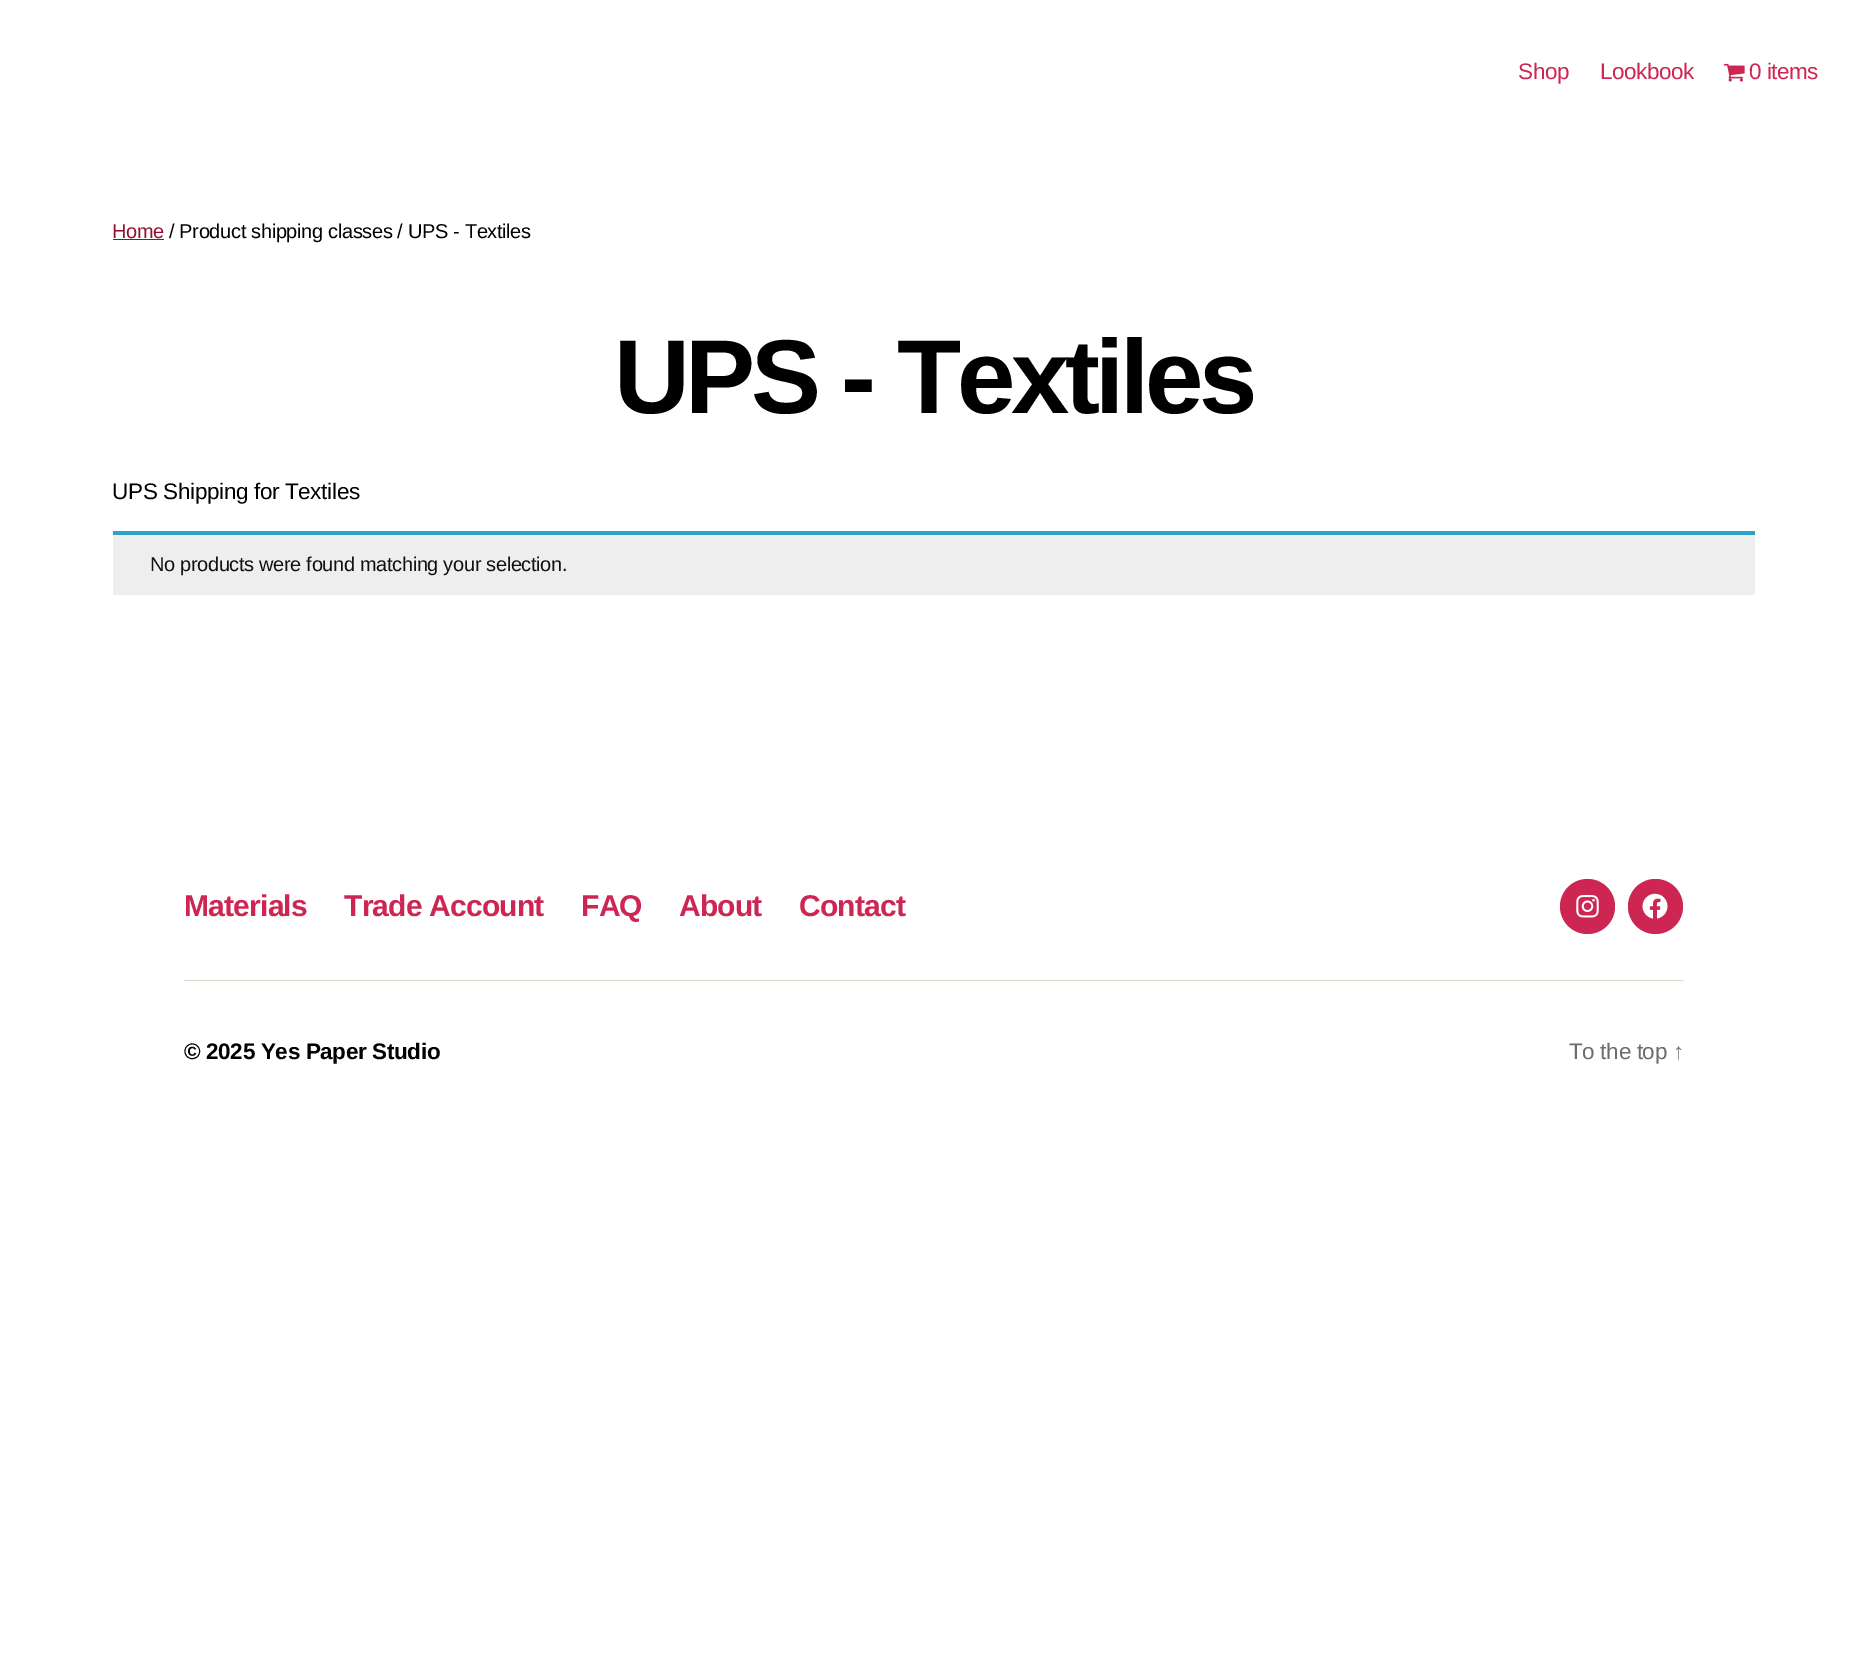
%!PS
<< /PageSize [1867 1672] >> setpagedevice
/rgb { dup -16 bitshift 255 div exch dup -8 bitshift 255 and 255 div exch 255 and 255 div setrgbcolor } def
/font { [ exch dup neg 0 0 3 -1 roll 0 0 ] selectfont } def
/circle { newpath 0 360 arc closepath } def
/picture { 5 dict begin { /h /w /y /x /name } { exch def } forall
  gsave x y translate w h scale
  w h 8 [w 0 0 h 0 0] name (r) file false 3 colorimage grestore end } def
0 1672 translate 1 -1 scale
4 setmiterlimit
16#FFFFFF rgb
0 0 1867 1672 rectfill
/LiberationSans-Regular 22.5 font
16#CD2653 rgb
1518 79 moveto -0.5 0 (Shop) ashow
1600 79 moveto -0.5 0 (Lookbook) ashow
(pic1.raw) 1723 63 22 19 picture
1749 79 moveto -0.5 0 (0 items) ashow
/LiberationSans-Regular 20 font
16#940E32 rgb
112 238 moveto -0.35 0 (Home) ashow
113 239 51 1 rectfill
16#000000 rgb
169 238 moveto -0.35 0 (/ Product shipping classes / UPS - Textiles) ashow
/LiberationSans-Bold 105 font
614 413 moveto -4.4 0 (UPS - Textiles) ashow
/LiberationSans-Regular 22.5 font
112 499 moveto -0.35 0 (UPS Shipping for Textiles) ashow
16#EEEEEE rgb
113 535 1642 60 rectfill
16#2EA2CC rgb
113 531 1642 4 rectfill
/LiberationSans-Regular 20 font
16#111111 rgb
150 571 moveto -0.35 0 (No products were found matching your selection.) ashow
16#DCD7CA rgb
184 980 1500 1 rectfill
/LiberationSans-Bold 30 font
16#CD2653 rgb
184 916 moveto -0.8 0 (Materials) ashow
344 916 moveto -0.8 0 (Trade Account) ashow
581 916 moveto -0.8 0 (FAQ) ashow
679 916 moveto -0.8 0 (About) ashow
799 916 moveto -0.8 0 (Contact) ashow
1587.5 906.5 27.5 circle fill
(pic2.raw) 1576 895 23 23 picture
1655.5 906.5 27.5 circle fill
(pic3.raw) 1642 893 26 26 picture
/LiberationSans-Bold 22.5 font
16#000000 rgb
184 1059 moveto -0.35 0 (© 2025 Yes Paper Studio) ashow
/LiberationSans-Regular 22.5 font
16#6D6D6D rgb
1569 1059 moveto -0.35 0 (To the top ↑) ashow
showpage
